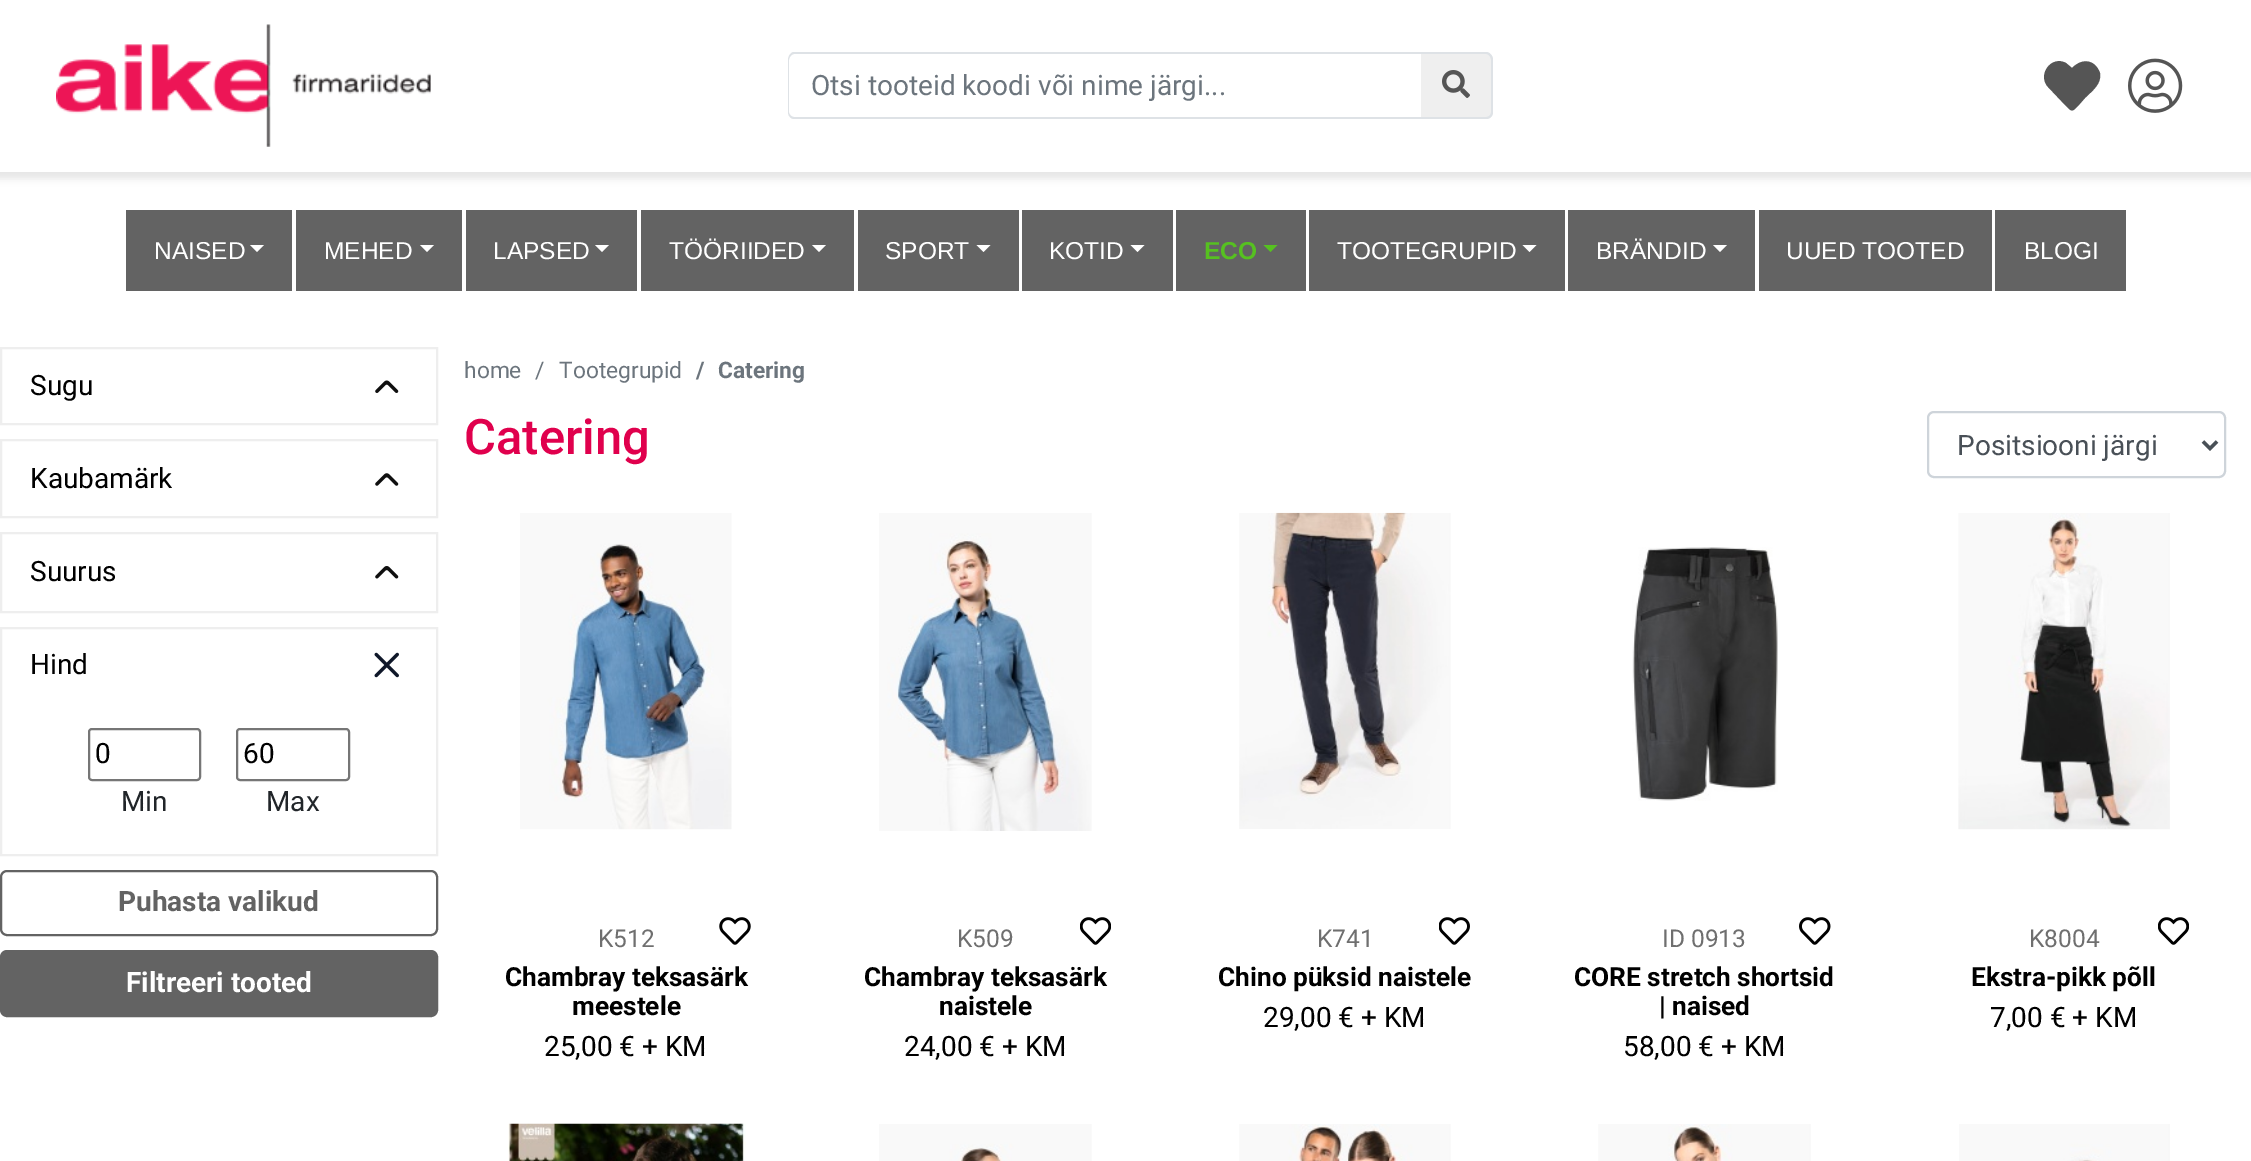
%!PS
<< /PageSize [2251 1161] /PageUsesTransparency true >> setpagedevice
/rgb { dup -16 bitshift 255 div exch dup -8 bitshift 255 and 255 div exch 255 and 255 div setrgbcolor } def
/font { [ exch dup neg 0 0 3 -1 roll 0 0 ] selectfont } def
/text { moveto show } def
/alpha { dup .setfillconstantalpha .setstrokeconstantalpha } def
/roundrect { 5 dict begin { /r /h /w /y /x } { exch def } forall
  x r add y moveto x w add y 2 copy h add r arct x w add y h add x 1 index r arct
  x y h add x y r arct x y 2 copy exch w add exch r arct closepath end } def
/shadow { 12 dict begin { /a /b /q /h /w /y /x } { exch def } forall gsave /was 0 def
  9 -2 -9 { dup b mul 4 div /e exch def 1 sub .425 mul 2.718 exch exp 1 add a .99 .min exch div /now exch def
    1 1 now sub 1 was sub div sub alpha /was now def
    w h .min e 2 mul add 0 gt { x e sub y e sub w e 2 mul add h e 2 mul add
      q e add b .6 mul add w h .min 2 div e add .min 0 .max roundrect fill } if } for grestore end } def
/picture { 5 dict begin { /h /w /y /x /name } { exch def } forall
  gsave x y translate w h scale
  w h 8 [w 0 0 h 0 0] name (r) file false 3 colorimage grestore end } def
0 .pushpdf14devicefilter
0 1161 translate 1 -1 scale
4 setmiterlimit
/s1 { /Roboto-Regular 28 font 16#6C757D rgb } def
/s2 { /LiberationSans-Regular 24.5 font 16#FFFFFF rgb } def
/s3 { /LiberationSans-Bold 24.5 font 16#56C120 rgb } def
/s4 { /Roboto-Regular 28 font 16#000000 rgb } def
/s5 { /Roboto-Regular 28 font 16#212529 rgb } def
/s6 { /Roboto-Bold 28 font 16#636363 rgb } def
/s7 { /Roboto-Bold 28 font 16#FFFFFF rgb } def
/s8 { /Roboto-Regular 22.75 font 16#6C757D rgb } def
/s9 { /Roboto-Bold 22.75 font 16#6C757D rgb } def
/s10 { /Roboto-Medium 49 font 16#E0004D rgb } def
/s11 { /Roboto-Regular 28 font 16#495057 rgb } def
/s12 { /Roboto-Regular 24.5 font 16#6F6F6F rgb } def
/s13 { /Roboto-Bold 26.25 font 16#000000 rgb } def
16#FFFFFF rgb
0 0 2251 1161 rectfill
16#000000 rgb
-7 -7 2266 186 0 3.5 0.09 shadow
16#FFFFFF rgb
0 0 2251 172 rectfill
(pic1.raw) 56 24 375 123 picture
16#DEE2E6 rgb
794 52 moveto 1423 52 lineto 1423 119 lineto 794 119 lineto 791 119 788 116 788 112 curveto 788 60 lineto 788 56 791 52 794 52 curveto closepath 794 54 moveto 1423 54 lineto 1423 117 lineto 794 117 lineto 792 117 789 115 789 112 curveto 789 60 lineto 789 57 792 54 794 54 curveto closepath eofill
s1
(Otsi tooteid koodi või nime järgi...) 811 95 text
16#EFEFEF rgb
1421 53 moveto 1486 53 lineto 1490 53 1493 56 1493 60 curveto 1493 112 lineto 1493 116 1490 119 1486 119 curveto 1421 119 lineto closepath fill
16#DEE2E6 rgb
1421 52 moveto 1486 52 lineto 1490 52 1493 56 1493 60 curveto 1493 112 lineto 1493 116 1490 119 1486 119 curveto 1421 119 lineto closepath 1421 54 moveto 1486 54 lineto 1489 54 1491 57 1491 60 curveto 1491 112 lineto 1491 115 1489 117 1486 117 curveto 1421 117 lineto closepath eofill
(pic2.raw) 1442 70 28 28 picture
16#555555 rgb
2095 65 moveto 2087 58 2078 62 2072 68 curveto 2066 63 lineto 2051 55 2037 75 2048 87 curveto 2066 106 lineto 2072 112 2072 112 2078 106 curveto 2085 98 lineto 2092 91 2102 84 2100 73 curveto 2099 70 2097 67 2095 65 curveto closepath fill
(pic3.raw) 2128 58 55 55 picture
16#636363 rgb
126 210 166 81 rectfill
s2
(NAISED) 154 259 text
250 245 moveto 264 245 lineto 257 252 lineto closepath fill
16#636363 rgb
296 210 166 81 rectfill
s2
(MEHED) 324 259 text
420 245 moveto 434 245 lineto 427 252 lineto closepath fill
16#636363 rgb
466 210 171 81 rectfill
s2
(LAPSED) 493 259 text
595 245 moveto 609 245 lineto 602 252 lineto closepath fill
16#636363 rgb
641 210 213 81 rectfill
s2
(TÖÖRIIDED) 669 259 text
812 245 moveto 826 245 lineto 819 252 lineto closepath fill
16#636363 rgb
858 210 161 81 rectfill
s2
(SPORT) 885 259 text
976.5 245 moveto 990.5 245 lineto 983.5 252 lineto closepath fill
16#636363 rgb
1022 210 151 81 rectfill
s2
(KOTID) 1049 259 text
1130.5 245 moveto 1144.5 245 lineto 1137.5 252 lineto closepath fill
16#636363 rgb
1176 210 130 81 rectfill
s3
(ECO) 1204 259 text
1263.5 245 moveto 1277.5 245 lineto 1270.5 252 lineto closepath fill
16#636363 rgb
1309 210 256 81 rectfill
s2
(TOOTEGRUPID) 1337 259 text
1522.5 245 moveto 1536.5 245 lineto 1529.5 252 lineto closepath fill
16#636363 rgb
1568 210 187 81 rectfill
s2
(BRÄNDID) 1596 259 text
1713 245 moveto 1727 245 lineto 1720 252 lineto closepath fill
16#636363 rgb
1759 210 233 81 rectfill
s2
(UUED TOOTED) 1786 259 text
16#636363 rgb
1995 210 131 81 rectfill
s2
(BLOGI) 2024 259 text
16#EEEEEE rgb
2 setlinewidth
1 348 436 76 rectstroke
s4
(Sugu) 30 395 text
(pic4.raw) 375 380 24 13 picture
16#EEEEEE rgb
1 440 436 77 rectstroke
s4
(Kaubamärk) 30 488 text
(pic5.raw) 375 473 24 13 picture
16#EEEEEE rgb
1 533 436 79 rectstroke
s4
(Suurus) 30 581 text
(pic6.raw) 375 566 24 13 picture
16#EEEEEE rgb
1 628 436 227 rectstroke
s4
(Hind) 30 674 text
(pic7.raw) 374 652 25 26 picture
16#767676 rgb
89 729 111 51 3 roundrect stroke
s4
(0) 95 763 text
s5
(Min) 121 811 text
16#767676 rgb
237 729 112 51 3 roundrect stroke
s4
(60) 243 763 text
s5
(Max) 266 811 text
16#636363 rgb
1 871 436 64 6 roundrect stroke
s6
(Puhasta valikud) 118 911 text
1 951 436 65 6 roundrect gsave fill grestore
stroke
s7
(Filtreeri tooted) 126 992 text
s8
(home) 464 378 text
(/) 535 378 text
(Tootegrupid) 559 378 text
s9
(/) 696 378 text
(Catering) 718 378 text
s10
(Catering) 464 454 text
16#CED4DA rgb
1928 412 297 65 6 roundrect stroke
16#495057 rgb
3.5 setlinewidth
2203 441.5 moveto 2210 448.5 lineto 2217 441.5 lineto stroke
s11
(Positsiooni järgi) 1957 455 text
(pic8.raw) 520 513 212 317 picture
s12
(K512) 598 947 text
(pic9.raw) 719 917 32 28 picture
s13
(Chambray teksasärk) 505 986 text
(meestele) 572 1015 text
s4
(25,00 € + KM) 544 1056 text
(pic10.raw) 879 513 213 318 picture
s12
(K509) 957 947 text
(pic11.raw) 1080 917 31 28 picture
s13
(Chambray teksasärk) 864 986 text
(naistele) 939 1015 text
s4
(24,00 € + KM) 904 1056 text
(pic12.raw) 1239 512 212 317 picture
s12
(K741) 1317 947 text
(pic13.raw) 1439 917 31 28 picture
s13
(Chino püksid naistele) 1218 986 text
s4
(29,00 € + KM) 1263 1027 text
(pic14.raw) 1632 547 146 254 picture
s12
(ID 0913) 1662 947 text
(pic15.raw) 1799 917 32 28 picture
s13
(CORE stretch shortsid) 1574 986 text
(| naised) 1659 1015 text
s4
(58,00 € + KM) 1623 1056 text
(pic16.raw) 1958 513 212 317 picture
s12
(K8004) 2029 947 text
(pic11.raw) 2158 917 31 28 picture
s13
(Ekstra-pikk põll) 1971 986 text
s4
(7,00 € + KM) 1990 1027 text
(pic17.raw) 508 1123 238 38 picture
(pic18.raw) 879 1124 213 37 picture
(pic19.raw) 1239 1124 212 37 picture
(pic20.raw) 1598 1124 213 37 picture
(pic21.raw) 1959 1124 211 37 picture
.poppdf14devicefilter showpage
